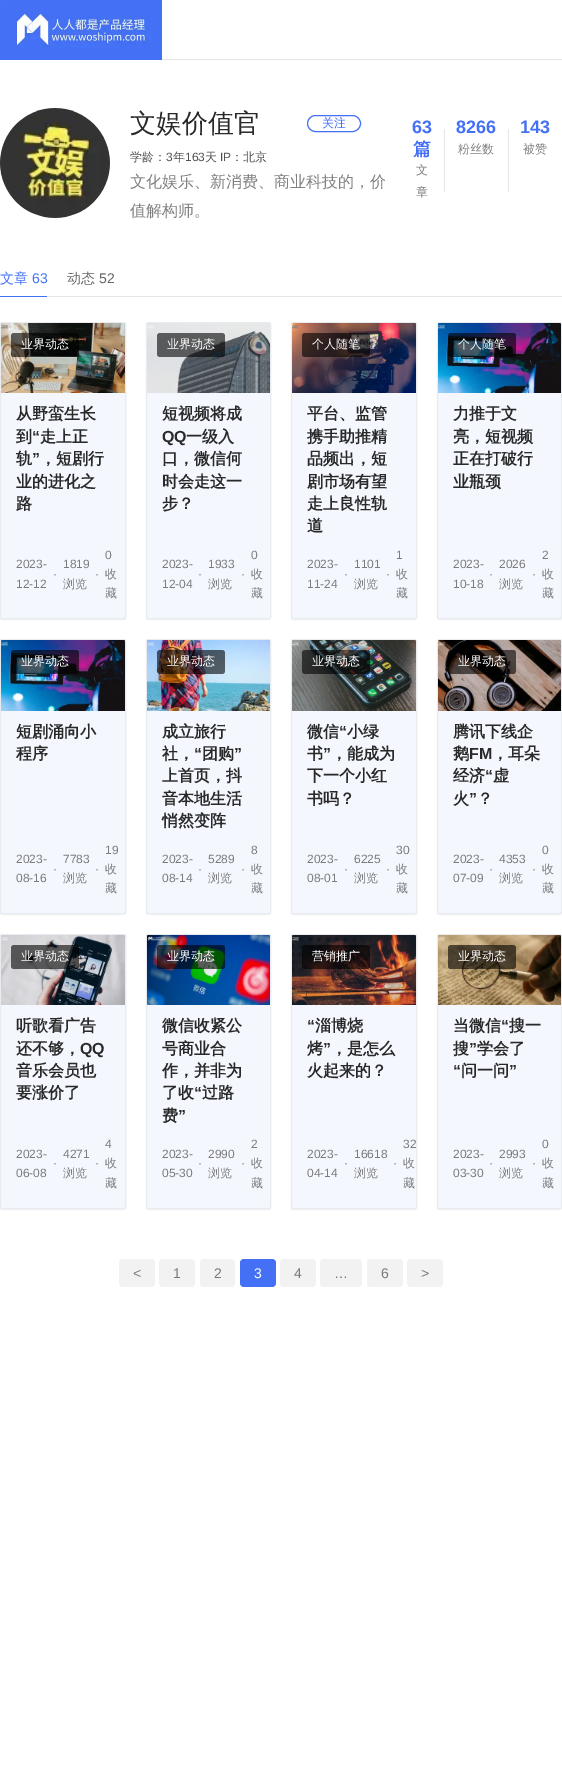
%!PS
<< /PageSize [562 1769] /PageUsesTransparency true >> setpagedevice
/rgb { dup -16 bitshift 255 div exch dup -8 bitshift 255 and 255 div exch 255 and 255 div setrgbcolor } def
/font { [ exch dup neg 0 0 3 -1 roll 0 0 ] selectfont } def
/text { moveto show } def
/alpha { dup .setfillconstantalpha .setstrokeconstantalpha } def
/roundrect { 5 dict begin { /r /h /w /y /x } { exch def } forall
  x r add y moveto x w add y 2 copy h add r arct x w add y h add x 1 index r arct
  x y h add x y r arct x y 2 copy exch w add exch r arct closepath end } def
/shadow { 12 dict begin { /a /b /q /h /w /y /x } { exch def } forall gsave /was 0 def
  9 -2 -9 { dup b mul 4 div /e exch def 1 sub .425 mul 2.718 exch exp 1 add a .99 .min exch div /now exch def
    1 1 now sub 1 was sub div sub alpha /was now def
    w h .min e 2 mul add 0 gt { x e sub y e sub w e 2 mul add h e 2 mul add
      q e add b .6 mul add w h .min 2 div e add .min 0 .max roundrect fill } if } for grestore end } def
/picture { 5 dict begin { /h /w /y /x /name } { exch def } forall
  gsave x y translate w h scale
  w h 8 [w 0 0 h 0 0] name (r) file false 3 colorimage grestore end } def
0 .pushpdf14devicefilter
0 1769 translate 1 -1 scale
4 setmiterlimit
/s1 { /WenQuanYiZenHei-Medium 26 font 16#292929 rgb } def
/s2 { /WenQuanYiZenHei-Medium 12 font 16#4370F5 rgb } def
/s3 { /WenQuanYiZenHei-Medium 12 font 16#525252 rgb } def
/s4 { /LiberationSans-Regular 12 font 16#525252 rgb } def
/s5 { /WenQuanYiZenHei-Medium 16 font 16#808080 rgb } def
/s6 { /LiberationSans-Bold 18 font 16#4370F5 rgb } def
/s7 { /WenQuanYiZenHei-Bold 18 font 16#4370F5 rgb } def
/s8 { /WenQuanYiZenHei-Medium 12 font 16#808080 rgb } def
/s9 { /WenQuanYiZenHei-Medium 14 font 16#4370F5 rgb } def
/s10 { /LiberationSans-Regular 14 font 16#4370F5 rgb } def
/s11 { /WenQuanYiZenHei-Medium 14 font 16#666666 rgb } def
/s12 { /LiberationSans-Regular 14 font 16#666666 rgb } def
/s13 { /WenQuanYiZenHei-Medium 12 font 16#FFFFFF rgb } def
/s14 { /WenQuanYiZenHei-Bold 16 font 16#292929 rgb } def
/s15 { /LiberationSans-Bold 16 font 16#292929 rgb } def
/s16 { /LiberationSans-Regular 12 font 16#7A7C7F rgb } def
/s17 { /WenQuanYiZenHei-Medium 12 font 16#7A7C7F rgb } def
/s18 { /LiberationSans-Regular 14 font 16#797979 rgb } def
/s19 { /LiberationSans-Regular 14 font 16#FFFFFF rgb } def
16#FFFFFF rgb
0 0 562 1769 rectfill
16#E6E6E6 rgb
162 59 400 1 rectfill
(pic1.raw) 0 0 162 60 picture
(pic2.raw) 0 108 110 110 picture
s1
(文娱价值官) 130 132 text
16#4370F5 rgb
307.5 115.5 53 16 8 roundrect stroke
s2
(关注) 322 127 text
s3
(学龄：) 130 161 text
s4
(3) 166 161 text
s3
(年) 173 161 text
s4
(163) 185 161 text
s3
(天) 205 161 text
s4
(IP) 220 161 text
s3
(：北京) 231 161 text
s5
(文化娱乐、新消费、商业科技的，价) 130 187 text
(值解构师。) 130 216 text
s6
(63) 412 133 text
s7
(篇) 413 155 text
s8
(文) 416 174 text
(章) 416 196 text
s6
(8266) 456 133 text
16#E6E6E6 rgb
444 129 1 63 rectfill
s8
(粉丝数) 458 153 text
s6
(143) 520 133 text
16#E6E6E6 rgb
508 129 1 63 rectfill
s8
(被赞) 523 153 text
16#E6E6E6 rgb
47 296 515 1 rectfill
16#4370F5 rgb
0 296 47 1 rectfill
s9
(文章) 0 283 text
s10
(63) 32 283 text
s11
(动态) 67 283 text
s12
(52) 99 283 text
16#000000 rgb
0 323 126 297 2 0.5 0.05 shadow
16#F4F7FD rgb
0.5 322.5 125 296 1.5 roundrect gsave fill grestore
16#E8EBF0 rgb
stroke
(pic3.raw) 1 323 124 70 picture
0.6 alpha
16#000000 rgb
11 333 68 24 3 roundrect fill
1 alpha
s13
(业界动态) 21 348 text
s14
(从野蛮生长) 16 419 text
(到) 16 442 text
s15
(“) 32 442 text
s14
(走上正) 40 442 text
(轨) 16 464 text
s15
(”) 32 464 text
s14
(，短剧行) 40 464 text
(业的进化之) 16 487 text
(路) 16 509 text
s16
(2023-) 16 568 text
(12-12) 16 588 text
(·) 53 578 text
(1819) 63 568 text
s17
(浏览) 63 588 text
s16
(·) 95 578 text
(0) 105 559 text
s17
(收) 105 578 text
(藏) 105 597 text
16#000000 rgb
146 323 125 297 2 0.5 0.05 shadow
16#F4F7FD rgb
146.5 322.5 124 296 1.5 roundrect gsave fill grestore
16#E8EBF0 rgb
stroke
(pic4.raw) 147 323 123 70 picture
0.6 alpha
16#000000 rgb
157 333 68 24 3 roundrect fill
1 alpha
s13
(业界动态) 167 348 text
s14
(短视频将成) 162 419 text
s15
(QQ) 162 442 text
s14
(一级入) 186 442 text
(口，微信何) 162 464 text
(时会走这一) 162 487 text
(步？) 162 509 text
s16
(2023-) 162 568 text
(12-04) 162 588 text
(·) 198 578 text
(1933) 208 568 text
s17
(浏览) 208 588 text
s16
(·) 241 578 text
(0) 251 559 text
s17
(收) 251 578 text
(藏) 251 597 text
16#000000 rgb
291 323 126 297 2 0.5 0.05 shadow
16#F4F7FD rgb
291.5 322.5 125 296 1.5 roundrect gsave fill grestore
16#E8EBF0 rgb
stroke
(pic5.raw) 292 323 124 70 picture
0.6 alpha
16#000000 rgb
302 333 68 24 3 roundrect fill
1 alpha
s13
(个人随笔) 312 348 text
s14
(平台、监管) 307 419 text
(携手助推精) 307 442 text
(品频出，短) 307 464 text
(剧市场有望) 307 487 text
(走上良性轨) 307 509 text
(道) 307 531 text
s16
(2023-) 307 568 text
(11-24) 307 588 text
(·) 344 578 text
(1101) 354 568 text
s17
(浏览) 354 588 text
s16
(·) 386 578 text
(1) 396 559 text
s17
(收) 396 578 text
(藏) 396 597 text
16#000000 rgb
437 323 125 297 2 0.5 0.05 shadow
16#F4F7FD rgb
437.5 322.5 124 296 1.5 roundrect gsave fill grestore
16#E8EBF0 rgb
stroke
(pic6.raw) 438 323 123 70 picture
0.6 alpha
16#000000 rgb
448 333 68 24 3 roundrect fill
1 alpha
s13
(个人随笔) 458 348 text
s14
(力推于文) 453 419 text
(亮，短视频) 453 442 text
(正在打破行) 453 464 text
(业瓶颈) 453 487 text
s16
(2023-) 453 568 text
(10-18) 453 588 text
(·) 489 578 text
(2026) 499 568 text
s17
(浏览) 499 588 text
s16
(·) 532 578 text
(2) 542 559 text
s17
(收) 542 578 text
(藏) 542 597 text
16#000000 rgb
0 640 126 275 2 0.5 0.05 shadow
16#F4F7FD rgb
0.5 639.5 125 274 1.5 roundrect gsave fill grestore
16#E8EBF0 rgb
stroke
(pic7.raw) 1 640 124 71 picture
0.6 alpha
16#000000 rgb
11 650 68 24 3 roundrect fill
1 alpha
s13
(业界动态) 21 665 text
s14
(短剧涌向小) 16 737 text
(程序) 16 759 text
s16
(2023-) 16 863 text
(08-16) 16 882 text
(·) 53 873 text
(7783) 63 863 text
s17
(浏览) 63 882 text
s16
(·) 95 873 text
(19) 105 854 text
s17
(收) 105 873 text
(藏) 105 892 text
16#000000 rgb
146 640 125 275 2 0.5 0.05 shadow
16#F4F7FD rgb
146.5 639.5 124 274 1.5 roundrect gsave fill grestore
16#E8EBF0 rgb
stroke
(pic8.raw) 147 640 123 71 picture
0.6 alpha
16#000000 rgb
157 650 68 24 3 roundrect fill
1 alpha
s13
(业界动态) 167 665 text
s14
(成立旅行) 162 737 text
(社，) 162 759 text
s15
(“) 194 759 text
s14
(团购) 202 759 text
s15
(”) 234 759 text
s14
(上首页，抖) 162 781 text
(音本地生活) 162 804 text
(悄然变阵) 162 826 text
s16
(2023-) 162 863 text
(08-14) 162 882 text
(·) 198 873 text
(5289) 208 863 text
s17
(浏览) 208 882 text
s16
(·) 241 873 text
(8) 251 854 text
s17
(收) 251 873 text
(藏) 251 892 text
16#000000 rgb
291 640 126 275 2 0.5 0.05 shadow
16#F4F7FD rgb
291.5 639.5 125 274 1.5 roundrect gsave fill grestore
16#E8EBF0 rgb
stroke
(pic9.raw) 292 640 124 71 picture
0.6 alpha
16#000000 rgb
302 650 68 24 3 roundrect fill
1 alpha
s13
(业界动态) 312 665 text
s14
(微信) 307 737 text
s15
(“) 339 737 text
s14
(小绿) 347 737 text
(书) 307 759 text
s15
(”) 323 759 text
s14
(，能成为) 331 759 text
(下一个小红) 307 781 text
(书吗？) 307 804 text
s16
(2023-) 307 863 text
(08-01) 307 882 text
(·) 344 873 text
(6225) 354 863 text
s17
(浏览) 354 882 text
s16
(·) 386 873 text
(30) 396 854 text
s17
(收) 396 873 text
(藏) 396 892 text
16#000000 rgb
437 640 125 275 2 0.5 0.05 shadow
16#F4F7FD rgb
437.5 639.5 124 274 1.5 roundrect gsave fill grestore
16#E8EBF0 rgb
stroke
(pic10.raw) 438 640 123 71 picture
0.6 alpha
16#000000 rgb
448 650 68 24 3 roundrect fill
1 alpha
s13
(业界动态) 458 665 text
s14
(腾讯下线企) 453 737 text
(鹅) 453 759 text
s15
(FM) 469 759 text
s14
(，耳朵) 492 759 text
(经济) 453 781 text
s15
(“) 485 781 text
s14
(虚) 493 781 text
(火) 453 804 text
s15
(”) 469 804 text
s14
(？) 477 804 text
s16
(2023-) 453 863 text
(07-09) 453 882 text
(·) 489 873 text
(4353) 499 863 text
s17
(浏览) 499 882 text
s16
(·) 532 873 text
(0) 542 854 text
s17
(收) 542 873 text
(藏) 542 892 text
16#000000 rgb
0 935 126 275 2 0.5 0.05 shadow
16#F4F7FD rgb
0.5 934.5 125 274 1.5 roundrect gsave fill grestore
16#E8EBF0 rgb
stroke
(pic11.raw) 1 935 124 70 picture
0.6 alpha
16#000000 rgb
11 945 68 24 3 roundrect fill
1 alpha
s13
(业界动态) 21 960 text
s14
(听歌看广告) 16 1031 text
(还不够，) 16 1054 text
s15
(QQ) 80 1054 text
s14
(音乐会员也) 16 1076 text
(要涨价了) 16 1098 text
s16
(2023-) 16 1158 text
(06-08) 16 1177 text
(·) 53 1167 text
(4271) 63 1158 text
s17
(浏览) 63 1177 text
s16
(·) 95 1167 text
(4) 105 1148 text
s17
(收) 105 1167 text
(藏) 105 1187 text
16#000000 rgb
146 935 125 275 2 0.5 0.05 shadow
16#F4F7FD rgb
146.5 934.5 124 274 1.5 roundrect gsave fill grestore
16#E8EBF0 rgb
stroke
(pic12.raw) 147 935 123 70 picture
0.6 alpha
16#000000 rgb
157 945 68 24 3 roundrect fill
1 alpha
s13
(业界动态) 167 960 text
s14
(微信收紧公) 162 1031 text
(号商业合) 162 1054 text
(作，并非为) 162 1076 text
(了收) 162 1098 text
s15
(“) 194 1098 text
s14
(过路) 202 1098 text
(费) 162 1121 text
s15
(”) 178 1121 text
s16
(2023-) 162 1158 text
(05-30) 162 1177 text
(·) 198 1167 text
(2990) 208 1158 text
s17
(浏览) 208 1177 text
s16
(·) 241 1167 text
(2) 251 1148 text
s17
(收) 251 1167 text
(藏) 251 1187 text
16#000000 rgb
291 935 126 275 2 0.5 0.05 shadow
16#F4F7FD rgb
291.5 934.5 125 274 1.5 roundrect gsave fill grestore
16#E8EBF0 rgb
stroke
(pic13.raw) 292 935 124 70 picture
0.6 alpha
16#000000 rgb
302 945 68 24 3 roundrect fill
1 alpha
s13
(营销推广) 312 960 text
s15
(“) 307 1031 text
s14
(淄博烧) 315 1031 text
(烤) 307 1054 text
s15
(”) 323 1054 text
s14
(，是怎么) 331 1054 text
(火起来的？) 307 1076 text
s16
(2023-) 307 1158 text
(04-14) 307 1177 text
(·) 344 1167 text
(16618) 354 1158 text
s17
(浏览) 354 1177 text
s16
(·) 393 1167 text
(32) 403 1148 text
s17
(收) 403 1167 text
(藏) 403 1187 text
16#000000 rgb
437 935 125 275 2 0.5 0.05 shadow
16#F4F7FD rgb
437.5 934.5 124 274 1.5 roundrect gsave fill grestore
16#E8EBF0 rgb
stroke
(pic14.raw) 438 935 123 70 picture
0.6 alpha
16#000000 rgb
448 945 68 24 3 roundrect fill
1 alpha
s13
(业界动态) 458 960 text
s14
(当微信) 453 1031 text
s15
(“) 501 1031 text
s14
(搜一) 509 1031 text
(搜) 453 1054 text
s15
(”) 469 1054 text
s14
(学会了) 477 1054 text
s15
(“) 453 1076 text
s14
(问一问) 461 1076 text
s15
(”) 509 1076 text
s16
(2023-) 453 1158 text
(03-30) 453 1177 text
(·) 489 1167 text
(2993) 499 1158 text
s17
(浏览) 499 1177 text
s16
(·) 532 1167 text
(0) 542 1148 text
s17
(收) 542 1167 text
(藏) 542 1187 text
16#F2F2F2 rgb
119 1259 36 28 4 roundrect fill
s18
(<) 133 1278 text
16#F2F2F2 rgb
159 1259 36 28 4 roundrect fill
s18
(1) 173 1278 text
16#F2F2F2 rgb
200 1259 35 28 4 roundrect fill
s18
(2) 214 1278 text
16#4370F5 rgb
240 1259 36 28 4 roundrect fill
s19
(3) 254 1278 text
16#F2F2F2 rgb
280 1259 36 28 4 roundrect fill
s18
(4) 294 1278 text
16#F2F2F2 rgb
320 1259 42 28 4 roundrect fill
s18
(…) 334 1278 text
16#F2F2F2 rgb
367 1259 36 28 4 roundrect fill
s18
(6) 381 1278 text
16#F2F2F2 rgb
407 1259 36 28 4 roundrect fill
s18
(>) 421 1278 text
.poppdf14devicefilter showpage
